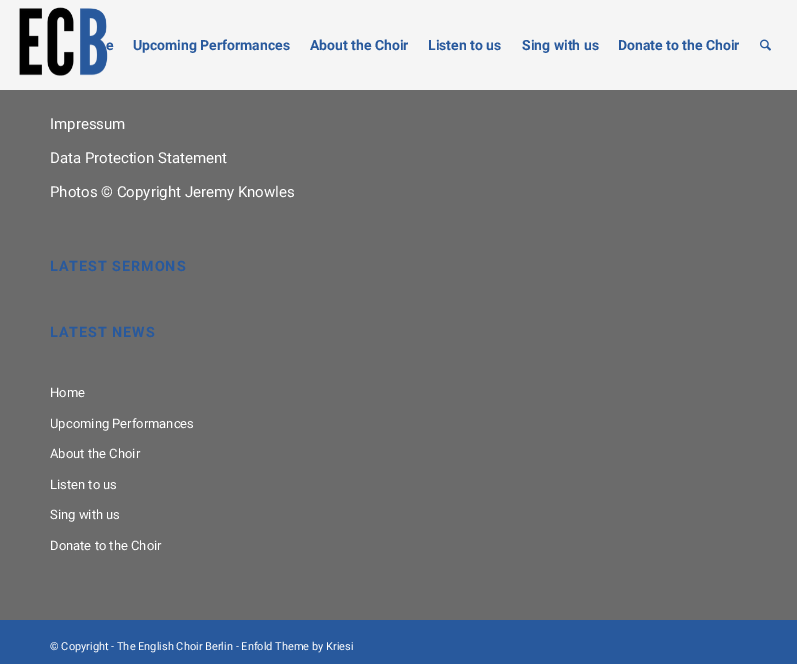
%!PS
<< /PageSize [797 664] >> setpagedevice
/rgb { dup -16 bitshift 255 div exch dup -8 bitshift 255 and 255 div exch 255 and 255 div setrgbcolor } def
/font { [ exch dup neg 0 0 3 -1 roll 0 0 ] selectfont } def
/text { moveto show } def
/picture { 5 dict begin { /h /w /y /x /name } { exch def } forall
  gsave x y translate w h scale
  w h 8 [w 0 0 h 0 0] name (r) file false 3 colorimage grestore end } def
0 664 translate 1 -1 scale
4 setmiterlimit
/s1 { /Roboto-Bold 14 font 16#28599D rgb } def
/s2 { /Roboto-Regular 15 font 16#FFFFFF rgb } def
/s3 { /Roboto-Regular 13 font 16#FFFFFF rgb } def
/s4 { /Roboto-Regular 11 font 16#FFFFFF rgb } def
16#6B6B6B rgb
0 0 797 664 rectfill
16#F5F5F5 rgb
0 0 797 90 rectfill
(pic1.raw) 19 7 89 69 picture
s1
(e) 106 50 text
(Upcoming Performances) 133 50 text
(About the Choir) 310 50 text
(Listen to us) 428 50 text
(Sing with us) 522 50 text
(Donate to the Choir) 618 50 text
(pic2.raw) 760 39 11 12 picture
s2
(Impressum) 50 129 text
(Data Protection Statement) 50 163 text
(Photos © Copyright Jeremy Knowles) 50 197 text
/Roboto-Bold 14.25 font
16#28599D rgb
50 271 moveto 1 0 (LATEST SERMONS) ashow
50 337 moveto 1 0 (LATEST NEWS) ashow
s3
(Home) 50 397 text
(Upcoming Performances) 50 428 text
(About the Choir) 50 458 text
(Listen to us) 50 489 text
(Sing with us) 50 519 text
(Donate to the Choir) 50 550 text
16#28599D rgb
0 620 797 44 rectfill
s4
(© Copyright - The English Choir Berlin - Enfold Theme by Kriesi) 50 650 text
showpage
